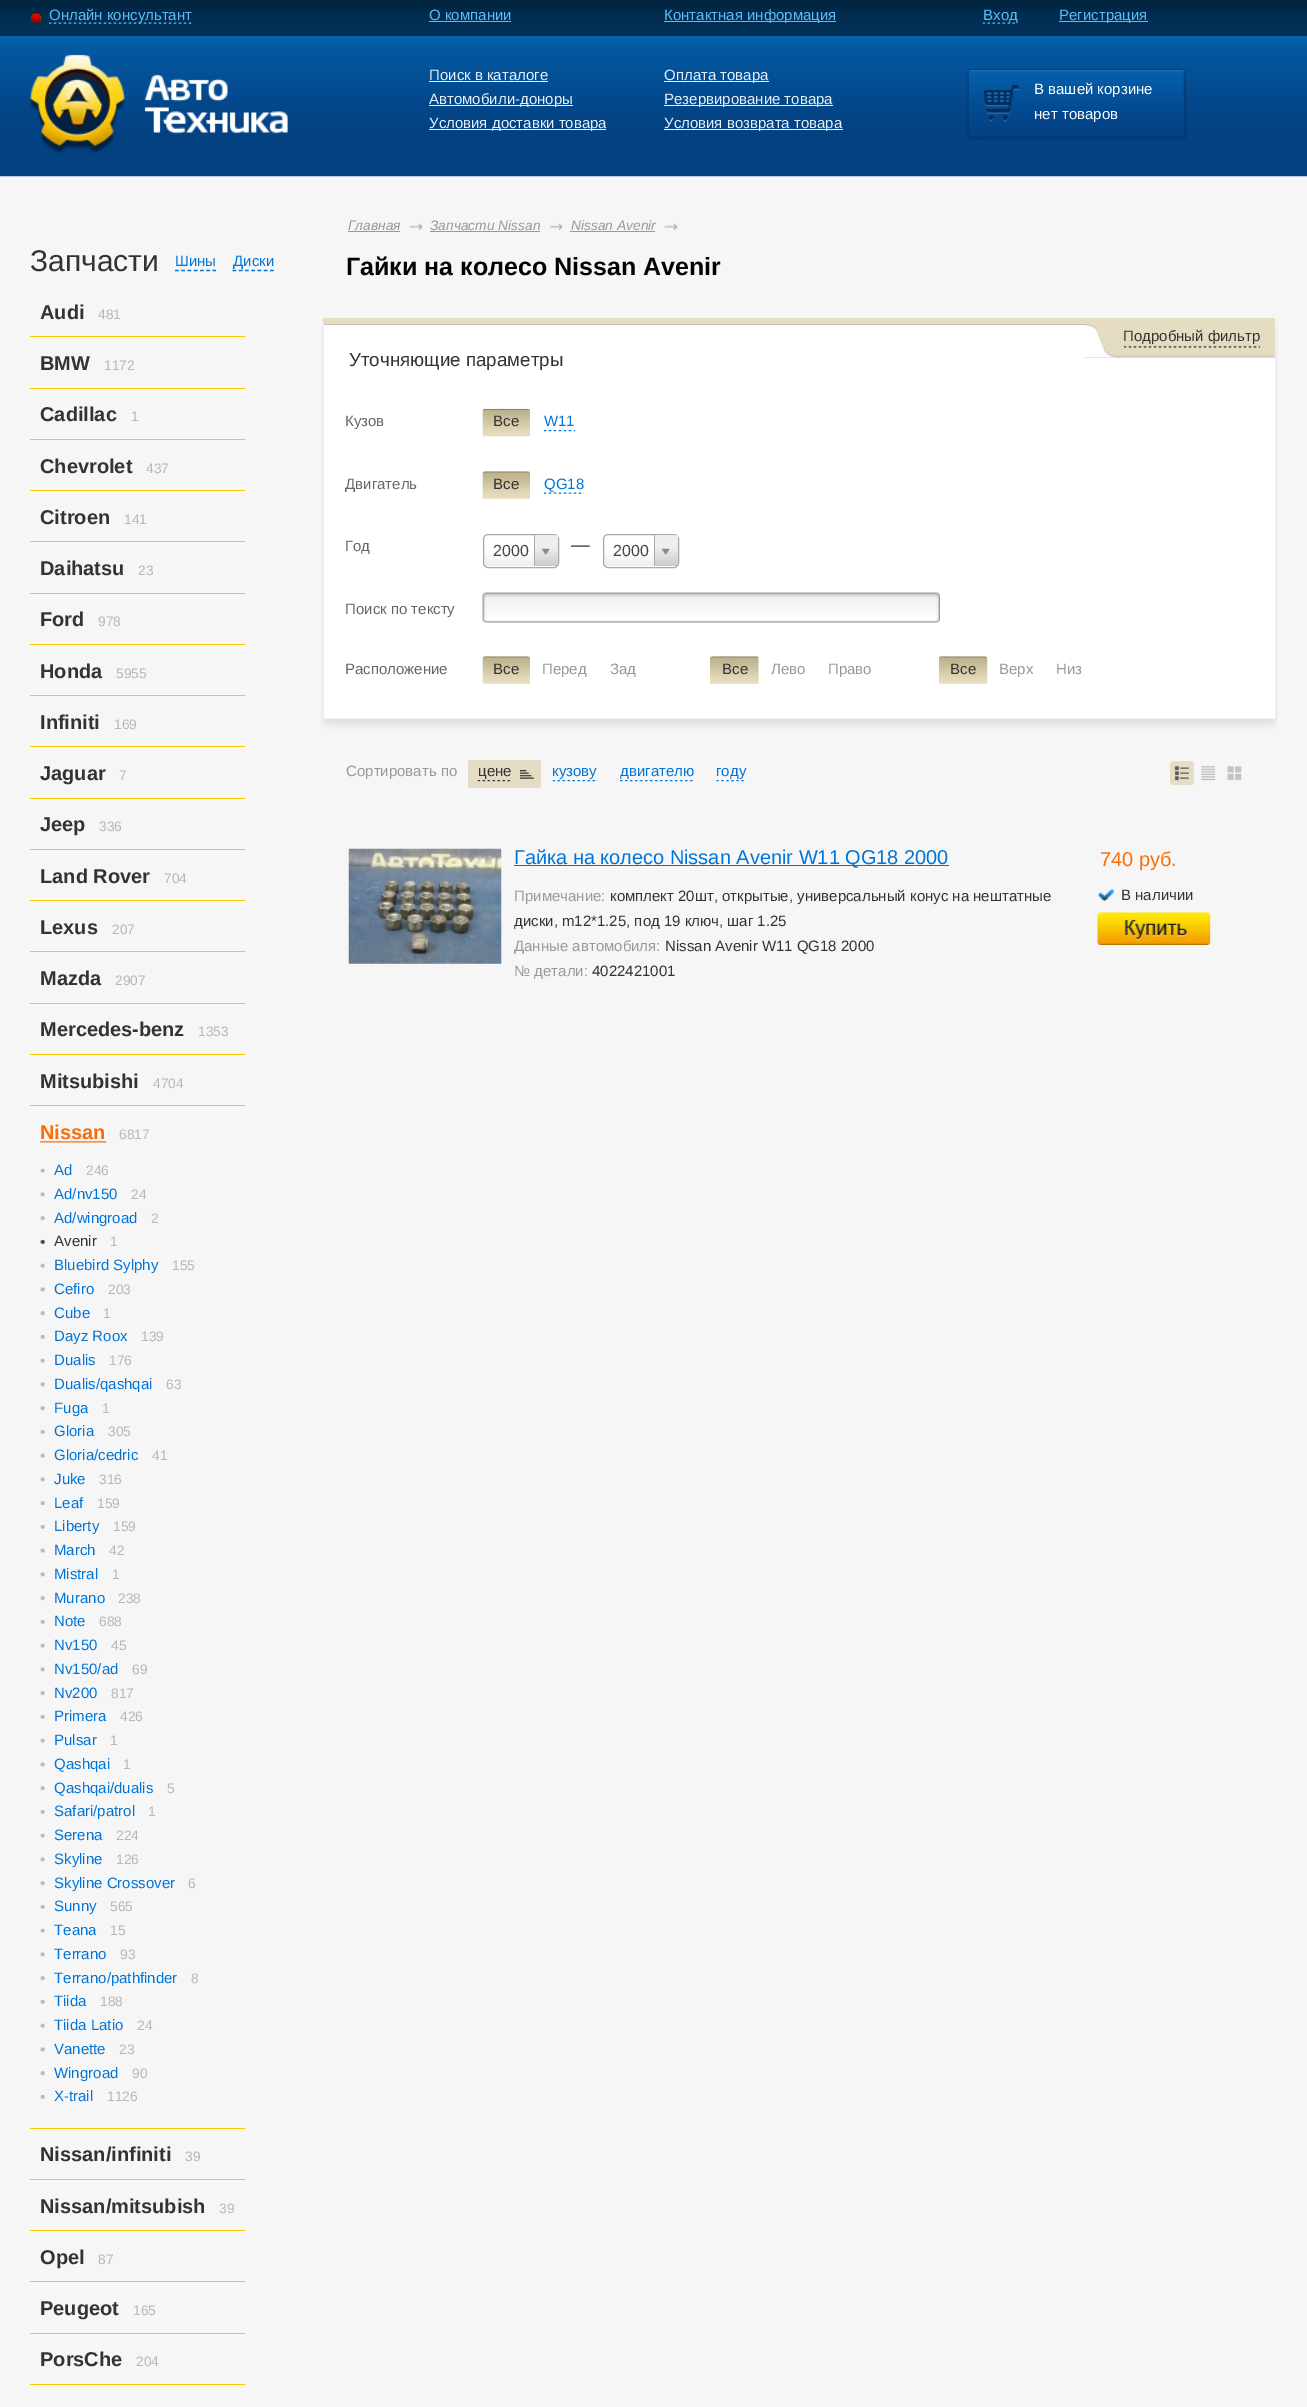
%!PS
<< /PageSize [1307 2407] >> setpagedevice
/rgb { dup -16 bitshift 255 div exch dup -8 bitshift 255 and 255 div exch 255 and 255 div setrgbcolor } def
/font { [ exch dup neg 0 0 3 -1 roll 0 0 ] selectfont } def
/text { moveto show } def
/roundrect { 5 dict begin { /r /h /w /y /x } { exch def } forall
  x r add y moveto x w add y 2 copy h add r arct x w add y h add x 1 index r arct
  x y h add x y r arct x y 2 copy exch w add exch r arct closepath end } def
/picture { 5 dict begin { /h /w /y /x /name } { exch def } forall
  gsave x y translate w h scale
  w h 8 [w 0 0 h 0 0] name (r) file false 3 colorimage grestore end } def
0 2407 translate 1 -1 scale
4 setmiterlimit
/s1 { /LiberationSans-Regular 15 font 16#5CBDFA rgb } def
/s2 { /LiberationSans-Regular 15 font 16#E9F0F7 rgb } def
/s3 { /LiberationSans-Regular 15 font 16#FFFFFF rgb } def
/s4 { /LiberationSans-Regular 30 font 16#333333 rgb } def
/s5 { /LiberationSans-Regular 15 font 16#0075D9 rgb } def
/s6 { /LiberationSans-Bold 20 font 16#333333 rgb } def
/s7 { /LiberationSans-Regular 13.75 font 16#B7B7B7 rgb } def
/s8 { /LiberationSans-Bold 20 font 16#FB6E07 rgb } def
/s9 { /LiberationSans-Regular 15 font 16#333333 rgb } def
/s10 { /LiberationSans-Italic 13.75 font 16#999999 rgb } def
/s11 { /LiberationSans-Bold 25 font 16#040404 rgb } def
/s12 { /LiberationSans-Regular 18.75 font 16#333333 rgb } def
/s13 { /LiberationSans-Regular 15 font 16#666666 rgb } def
/s14 { /LiberationSans-Regular 16 font 16#444444 rgb } def
/s15 { /LiberationSans-Regular 15 font 16#999999 rgb } def
/s16 { /LiberationSans-Regular 20 font 16#0075D9 rgb } def
/s17 { /LiberationSans-Regular 20 font 16#FB6E07 rgb } def
16#F7F6F6 rgb
0 0 1307 2407 rectfill
(pic1.raw) 0 37 1307 140 picture
(pic6.raw) 0 36 1307 2 picture
(pic2.raw) 0 0 1307 37 picture
(pic3.raw) 31 12 11 12 picture
(pic4.raw) 49 22 143 2 picture
s1
(Онлайн консультант) 49 20 text
(О компании) 429 20 text
429 21 82 1 rectfill
664 21 172 1 rectfill
(Контактная информация) 664 20 text
(pic5.raw) 982 22 36 2 picture
(Вход) 983 20 text
1059 21 89 1 rectfill
(Регистрация) 1059 20 text
(pic7.raw) 29 54 259 100 picture
s2
(Поиск в каталоге) 429 80 text
429 81 119 1 rectfill
429 105 144 1 rectfill
(Автомобили-доноры) 429 104 text
429 129 177 1 rectfill
(Условия доставки товара) 429 128 text
664 81 105 1 rectfill
(Оплата товара) 664 80 text
664 105 169 1 rectfill
(Резервирование товара) 664 104 text
664 129 179 1 rectfill
(Условия возврата товара) 664 128 text
(pic8.raw) 967 68 13 72 picture
(pic9.raw) 980 68 207 72 picture
(pic10.raw) 983 85 36 37 picture
s3
(В вашей корзине) 1034 94 text
(нет товаров) 1034 119 text
s4
(Запчасти) 30 271 text
16#0075D9 rgb
1.2 setlinewidth
[3.75 2.5] 0 setdash
175 270.5 moveto 216 270.5 lineto stroke
s5
(Шины) 175 266 text
232.5 270.5 moveto 274 270.5 lineto stroke
(Диски) 233 266 text
16#FFC600 rgb
30 336 215 1 rectfill
s6
(Audi) 40 319 text
s7
(481) 98 319 text
16#FFC600 rgb
30 388 215 1 rectfill
s6
(BMW) 40 370 text
s7
(1172) 104 370 text
16#FFC600 rgb
30 439 215 1 rectfill
s6
(Cadillac) 40 421 text
s7
(1) 131 421 text
16#FFC600 rgb
30 490 215 1 rectfill
s6
(Chevrolet) 40 473 text
s7
(437) 146 473 text
16#FFC600 rgb
30 541 215 1 rectfill
s6
(Citroen) 40 524 text
s7
(141) 124 524 text
16#FFC600 rgb
30 593 215 1 rectfill
s6
(Daihatsu) 40 575 text
s7
(23) 138 575 text
16#FFC600 rgb
30 644 215 1 rectfill
s6
(Ford) 40 626 text
s7
(978) 98 626 text
16#FFC600 rgb
30 695 215 1 rectfill
s6
(Honda) 40 678 text
s7
(5955) 116 678 text
16#FFC600 rgb
30 746 215 1 rectfill
s6
(Infiniti) 40 729 text
s7
(169) 114 729 text
16#FFC600 rgb
30 798 215 1 rectfill
s6
(Jaguar) 40 780 text
s7
(7) 119 780 text
16#FFC600 rgb
30 849 215 1 rectfill
s6
(Jeep) 40 831 text
s7
(336) 99 831 text
16#FFC600 rgb
30 900 215 1 rectfill
s6
(Land Rover) 40 883 text
s7
(704) 164 883 text
16#FFC600 rgb
30 951 215 1 rectfill
s6
(Lexus) 40 934 text
s7
(207) 112 934 text
16#FFC600 rgb
30 1003 215 1 rectfill
s6
(Mazda) 40 985 text
s7
(2907) 115 985 text
16#FFC600 rgb
30 1054 215 1 rectfill
s6
(Mercedes-benz) 40 1036 text
s7
(1353) 198 1036 text
16#FFC600 rgb
30 1105 215 1 rectfill
s6
(Mitsubishi) 40 1088 text
s7
(4704) 153 1088 text
16#FFC600 rgb
30 2128 215 1 rectfill
s8
(Nissan) 40 1139 text
s7
(6817) 119 1139 text
(pic11.raw) 40 1141 67 2 picture
(pic12.raw) 40 1168 5 5 picture
s5
(Ad) 54 1175 text
s7
(246) 86 1175 text
(pic13.raw) 40 1192 5 5 picture
s5
(Ad/nv150) 54 1199 text
s7
(24) 131 1199 text
(pic14.raw) 40 1216 5 5 picture
s5
(Ad/wingroad) 54 1223 text
s7
(2) 151 1223 text
(pic15.raw) 40 1239 5 5 picture
s9
(Avenir) 54 1246 text
s7
(1) 110 1246 text
(pic12.raw) 40 1263 5 5 picture
s5
(Bluebird Sylphy) 54 1270 text
s7
(155) 172 1270 text
(pic13.raw) 40 1287 5 5 picture
s5
(Cefiro) 54 1294 text
s7
(203) 108 1294 text
(pic14.raw) 40 1311 5 5 picture
s5
(Cube) 54 1318 text
s7
(1) 103 1318 text
(pic16.raw) 40 1335 5 4 picture
s5
(Dayz Roox) 54 1341 text
s7
(139) 141 1341 text
(pic12.raw) 40 1358 5 5 picture
s5
(Dualis) 54 1365 text
s7
(176) 109 1365 text
(pic13.raw) 40 1382 5 5 picture
s5
(Dualis/qashqai) 54 1389 text
s7
(63) 166 1389 text
(pic14.raw) 40 1406 5 5 picture
s5
(Fuga) 54 1413 text
s7
(1) 102 1413 text
(pic16.raw) 40 1430 5 4 picture
s5
(Gloria) 54 1436 text
s7
(305) 108 1436 text
(pic12.raw) 40 1453 5 5 picture
s5
(Gloria/cedric) 54 1460 text
s7
(41) 152 1460 text
(pic13.raw) 40 1477 5 5 picture
s5
(Juke) 54 1484 text
s7
(316) 99 1484 text
(pic14.raw) 40 1501 5 5 picture
s5
(Leaf) 54 1508 text
s7
(159) 97 1508 text
(pic16.raw) 40 1525 5 4 picture
s5
(Liberty) 54 1531 text
s7
(159) 113 1531 text
(pic12.raw) 40 1548 5 5 picture
s5
(March) 54 1555 text
s7
(42) 109 1555 text
(pic13.raw) 40 1572 5 5 picture
s5
(Mistral) 54 1579 text
s7
(1) 112 1579 text
(pic14.raw) 40 1596 5 5 picture
s5
(Murano) 54 1603 text
s7
(238) 118 1603 text
(pic16.raw) 40 1620 5 4 picture
s5
(Note) 54 1626 text
s7
(688) 99 1626 text
(pic12.raw) 40 1643 5 5 picture
s5
(Nv150) 54 1650 text
s7
(45) 111 1650 text
(pic13.raw) 40 1667 5 5 picture
s5
(Nv150/ad) 54 1674 text
s7
(69) 132 1674 text
(pic14.raw) 40 1691 5 5 picture
s5
(Nv200) 54 1698 text
s7
(817) 111 1698 text
(pic16.raw) 40 1715 5 4 picture
s5
(Primera) 54 1721 text
s7
(426) 120 1721 text
(pic12.raw) 40 1738 5 5 picture
s5
(Pulsar) 54 1745 text
s7
(1) 110 1745 text
(pic13.raw) 40 1762 5 5 picture
s5
(Qashqai) 54 1769 text
s7
(1) 123 1769 text
(pic14.raw) 40 1786 5 5 picture
s5
(Qashqai/dualis) 54 1793 text
s7
(5) 167 1793 text
(pic16.raw) 40 1810 5 4 picture
s5
(Safari/patrol) 54 1816 text
s7
(1) 148 1816 text
(pic12.raw) 40 1833 5 5 picture
s5
(Serena) 54 1840 text
s7
(224) 116 1840 text
(pic13.raw) 40 1857 5 5 picture
s5
(Skyline) 54 1864 text
s7
(126) 116 1864 text
(pic14.raw) 40 1881 5 5 picture
s5
(Skyline Crossover) 54 1888 text
s7
(6) 188 1888 text
(pic16.raw) 40 1905 5 4 picture
s5
(Sunny) 54 1911 text
s7
(565) 110 1911 text
(pic12.raw) 40 1928 5 5 picture
s5
(Teana) 54 1935 text
s7
(15) 110 1935 text
(pic13.raw) 40 1952 5 5 picture
s5
(Terrano) 54 1959 text
s7
(93) 120 1959 text
(pic14.raw) 40 1976 5 5 picture
s5
(Terrano/pathfinder) 54 1983 text
s7
(8) 191 1983 text
(pic16.raw) 40 2000 5 4 picture
s5
(Tiida) 54 2006 text
s7
(188) 100 2006 text
(pic12.raw) 40 2023 5 5 picture
s5
(Tiida Latio) 54 2030 text
s7
(24) 137 2030 text
(pic13.raw) 40 2047 5 5 picture
s5
(Vanette) 54 2054 text
s7
(23) 119 2054 text
(pic14.raw) 40 2071 5 5 picture
s5
(Wingroad) 54 2078 text
s7
(90) 132 2078 text
(pic16.raw) 40 2095 5 4 picture
s5
(X-trail) 54 2101 text
s7
(1126) 107 2101 text
16#FFC600 rgb
30 2179 215 1 rectfill
s6
(Nissan/infiniti) 40 2161 text
s7
(39) 185 2161 text
16#FFC600 rgb
30 2230 215 1 rectfill
s6
(Nissan/mitsubish) 40 2213 text
s7
(39) 219 2213 text
16#FFC600 rgb
30 2281 215 1 rectfill
s6
(Opel) 40 2264 text
s7
(87) 98 2264 text
16#FFC600 rgb
30 2333 215 1 rectfill
s6
(Peugeot) 40 2315 text
s7
(165) 133 2315 text
16#FFC600 rgb
30 2384 215 1 rectfill
s6
(PorsСhe) 40 2366 text
s7
(204) 136 2366 text
s10
(Главная) 348 230 text
348 231 52 1 rectfill
(pic17.raw) 409 223 14 7 picture
(Запчасти Nissan) 430 230 text
430 231 110 1 rectfill
(pic17.raw) 549 223 14 7 picture
(Nissan Avenir) 571 230 text
570 231 85 1 rectfill
(pic17.raw) 664 223 14 7 picture
s11
(Гайки на колесо Nissan Avenir) 346 275 text
16#EFEEEE rgb
321 319 3 399 rectfill
1275 319 3 399 rectfill
16#F5F4F4 rgb
321 319 3 7 rectfill
1275 319 3 7 rectfill
(pic18.raw) 321 717 790 14 picture
(pic19.raw) 1111 717 167 14 picture
16#E5DDC2 rgb
323 318 952 6 rectfill
16#FFFFFF rgb
324 325 951 393 rectfill
16#F5EEDA rgb
1085 357 190 1 rectfill
(pic21.raw) 1085 324 190 34 picture
s9
(Подробный фильтр) 1123 341 text
(pic20.raw) 1123 346 137 2 picture
16#C0BDB5 rgb
324 324 761 1 rectfill
(pic22.raw) 1085 324 35 34 picture
s12
(Уточняющие параметры) 349 366 text
s13
(Кузов) 345 426 text
(pic23.raw) 482 408 48 29 picture
s9
(Все) 493 426 text
s5
(W11) 544 426 text
(pic24.raw) 543 430 32 2 picture
s13
(Двигатель) 345 489 text
(pic25.raw) 482 471 48 28 picture
s9
(Все) 493 489 text
s5
(QG18) 544 489 text
(pic26.raw) 543 492 41 2 picture
s13
(Год) 345 551 text
gsave
483 534 76 34 5 roundrect clip newpath
gsave 483 535 moveto 559 535 lineto 559 566 lineto 483 566 lineto closepath clip newpath
<< /ShadingType 2 /ColorSpace /DeviceRGB /Coords [484 566 484 535] /Extend [true true] /Function << /FunctionType 3 /Domain [0 1] /Functions [<< /FunctionType 2 /Domain [0 1] /C0 [0.933 0.933 0.933] /C1 [1 1 1] /N 1 >> << /FunctionType 2 /Domain [0 1] /C0 [1 1 1] /C1 [1 1 1] /N 1 >>] /Bounds [0.5] /Encode [0 1 0 1] >> >> shfill grestore
grestore
16#AAAAAA rgb
1 setlinewidth
[] 0 setdash
483.5 534.5 75 33 4.5 roundrect stroke
s14
(2000) 493 556 text
gsave
484 535 74 31 4 roundrect clip newpath
gsave 534 535 moveto 553 535 lineto 556 535 558 537 558 540 curveto 558 561 lineto 558 564 556 566 553 566 curveto 534 566 lineto closepath clip newpath
<< /ShadingType 2 /ColorSpace /DeviceRGB /Coords [535 566 535 535] /Extend [true true] /Function << /FunctionType 3 /Domain [0 1] /Functions [<< /FunctionType 2 /Domain [0 1] /C0 [0.8 0.8 0.8] /C1 [0.933 0.933 0.933] /N 1 >> << /FunctionType 2 /Domain [0 1] /C0 [0.933 0.933 0.933] /C1 [0.933 0.933 0.933] /N 1 >>] /Bounds [0.6] /Encode [0 1 0 1] >> >> shfill grestore
grestore
16#AAAAAA rgb
534 535 1 31 rectfill
(pic27.raw) 541 548 10 9 picture
s12
(—) 571 551 text
gsave
603 534 76 34 5 roundrect clip newpath
gsave 603 535 moveto 679 535 lineto 679 566 lineto 603 566 lineto closepath clip newpath
<< /ShadingType 2 /ColorSpace /DeviceRGB /Coords [604 566 604 535] /Extend [true true] /Function << /FunctionType 3 /Domain [0 1] /Functions [<< /FunctionType 2 /Domain [0 1] /C0 [0.933 0.933 0.933] /C1 [1 1 1] /N 1 >> << /FunctionType 2 /Domain [0 1] /C0 [1 1 1] /C1 [1 1 1] /N 1 >>] /Bounds [0.5] /Encode [0 1 0 1] >> >> shfill grestore
grestore
16#AAAAAA rgb
603.5 534.5 75 33 4.5 roundrect stroke
s14
(2000) 613 556 text
gsave
604 535 74 31 4 roundrect clip newpath
gsave 654 535 moveto 673 535 lineto 676 535 678 537 678 540 curveto 678 561 lineto 678 564 676 566 673 566 curveto 654 566 lineto closepath clip newpath
<< /ShadingType 2 /ColorSpace /DeviceRGB /Coords [655 566 655 535] /Extend [true true] /Function << /FunctionType 3 /Domain [0 1] /Functions [<< /FunctionType 2 /Domain [0 1] /C0 [0.8 0.8 0.8] /C1 [0.933 0.933 0.933] /N 1 >> << /FunctionType 2 /Domain [0 1] /C0 [0.933 0.933 0.933] /C1 [0.933 0.933 0.933] /N 1 >>] /Bounds [0.6] /Encode [0 1 0 1] >> >> shfill grestore
grestore
16#AAAAAA rgb
654 535 1 31 rectfill
(pic28.raw) 661 548 10 9 picture
s13
(Поиск по тексту) 345 614 text
(pic29.raw) 482 592 458 31 picture
(Расположение) 345 674 text
(pic25.raw) 482 656 48 28 picture
s9
(Все) 493 674 text
s15
(Перед) 542 674 text
(Зад) 610 674 text
(pic30.raw) 710 656 49 28 picture
s9
(Все) 722 674 text
s15
(Лево) 771 674 text
(Право) 828 674 text
(pic31.raw) 938 656 50 28 picture
s9
(Все) 950 674 text
s15
(Верх) 999 674 text
(Низ) 1056 674 text
(Сортировать по) 346 776 text
16#E4DCC4 rgb
468 760 73 28 2.5 roundrect fill
(pic32.raw) 520 770 14 9 picture
s9
(цене) 478 776 text
(pic33.raw) 477 780 34 2 picture
s5
(кузову) 552 776 text
(pic34.raw) 552 780 46 2 picture
(двигателю) 620 776 text
(pic35.raw) 620 780 73 2 picture
(году) 716 776 text
(pic36.raw) 716 780 31 2 picture
(pic37.raw) 1170 761 24 24 picture
(pic38.raw) 1201 766 15 15 picture
(pic39.raw) 1227 766 15 15 picture
(pic40.raw) 348 848 154 116 picture
514 865 435 1 rectfill
s16
(Гайка на колесо Nissan Avenir W11 QG18 2000) 514 864 text
s15
(Примечание:) 514 901 text
s9
(комплект 20шт, открытые, универсальный конус на нештатные) 610 901 text
(диски, m12*1.25, под 19 ключ, шаг 1.25) 514 926 text
s15
(Данные автомобиля:) 514 951 text
s9
(Nissan Avenir W11 QG18 2000) 665 951 text
s15
(№ детали:) 514 976 text
s9
(4022421001) 592 976 text
s17
(740 руб.) 1100 866 text
(pic41.raw) 1098 888 16 14 picture
s9
(В наличии) 1121 900 text
(pic42.raw) 1097 912 114 33 picture
showpage
